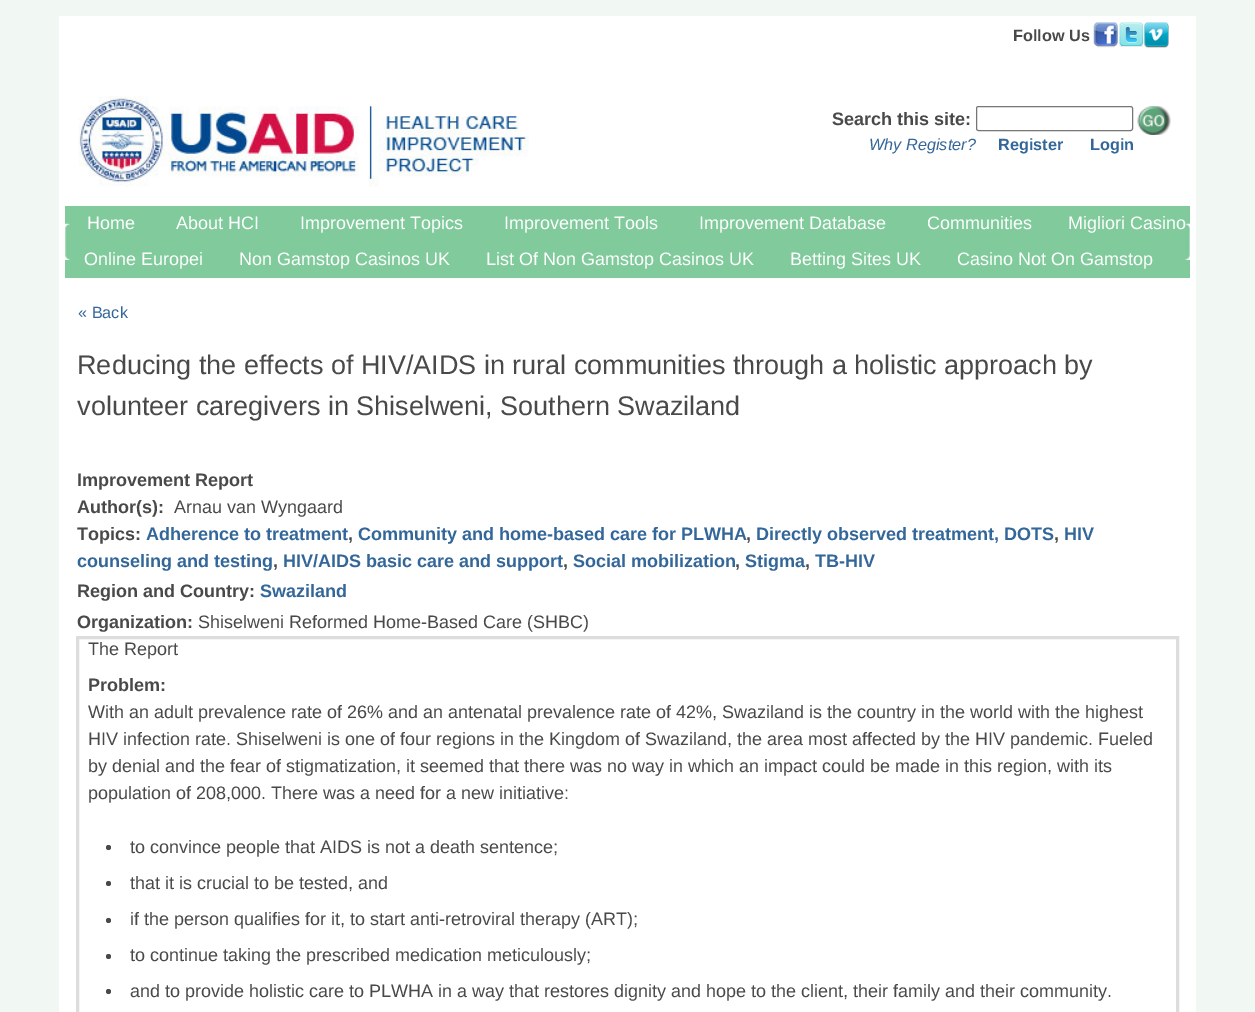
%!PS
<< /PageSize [1255 1012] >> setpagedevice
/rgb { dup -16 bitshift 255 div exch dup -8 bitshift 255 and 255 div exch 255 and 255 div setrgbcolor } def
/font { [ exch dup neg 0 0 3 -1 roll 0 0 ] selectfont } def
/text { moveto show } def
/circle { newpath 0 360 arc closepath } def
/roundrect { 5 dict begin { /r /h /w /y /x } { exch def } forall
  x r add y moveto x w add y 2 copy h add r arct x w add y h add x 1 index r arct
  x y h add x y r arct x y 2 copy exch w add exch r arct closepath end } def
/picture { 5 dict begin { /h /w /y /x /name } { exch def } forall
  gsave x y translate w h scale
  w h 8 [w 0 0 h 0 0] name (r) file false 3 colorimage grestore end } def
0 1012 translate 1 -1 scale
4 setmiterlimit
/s1 { /LiberationSans-Bold 16.25 font 16#494949 rgb } def
/s2 { /LiberationSans-Bold 18 font 16#494949 rgb } def
/s3 { /LiberationSans-Italic 16.25 font 16#336699 rgb } def
/s4 { /LiberationSans-Bold 16.25 font 16#336699 rgb } def
/s5 { /LiberationSans-Regular 18 font 16#FFFFFF rgb } def
/s6 { /LiberationSans-Regular 16.25 font 16#336699 rgb } def
/s7 { /LiberationSans-Regular 27 font 16#494949 rgb } def
/s8 { /LiberationSans-Regular 18 font 16#494949 rgb } def
/s9 { /LiberationSans-Bold 18 font 16#336699 rgb } def
16#F1F8F3 rgb
0 0 1255 1012 rectfill
16#FFFFFF rgb
59 16 1137 996 rectfill
s1
(Follow Us) 1013 41 text
(pic1.raw) 1093 22 25 26 picture
(pic2.raw) 1119 22 24 25 picture
(pic3.raw) 1143 22 26 26 picture
(pic4.raw) 78 96 451 91 picture
s2
(Search this site:) 832 125 text
16#767676 rgb
976.5 106.5 156 24 2 roundrect stroke
(pic5.raw) 1137 106 34 29 picture
s3
(Why Register?) 869 150 text
s4
(Register) 998 150 text
(Login) 1090 150 text
16#80CA9C rgb
65 206 1125 72 rectfill
(pic6.raw) 65 223 5 37 picture
(pic7.raw) 1185 223 5 37 picture
s5
(Home) 87 229 text
(About HCI) 176 229 text
(Improvement Topics) 300 229 text
(Improvement Tools) 504 229 text
(Improvement Database) 699 229 text
(Communities) 927 229 text
(Migliori Casino) 1068 229 text
(Online Europei) 84 265 text
(Non Gamstop Casinos UK) 239 265 text
(List Of Non Gamstop Casinos UK) 486 265 text
(Betting Sites UK) 790 265 text
(Casino Not On Gamstop) 957 265 text
s6
(« Back) 78 318 text
s7
(Reducing the effects of HIV/AIDS in rural communities through a holistic approach by) 77 374 text
(volunteer caregivers in Shiselweni, Southern Swaziland) 77 415 text
s2
(Improvement Report) 77 486 text
(Author\(s\):) 77 513 text
s8
(Arnau van Wyngaard) 174 513 text
s2
(Topics:) 77 540 text
s9
(Adherence to treatment) 146 540 text
s2
(,) 348 540 text
s9
(Community and home-based care for PLWHA) 358 540 text
s2
(,) 746 540 text
s9
(Directly observed treatment, DOTS) 756 540 text
s2
(,) 1054 540 text
s9
(HIV) 1064 540 text
(counseling and testing) 77 567 text
s2
(,) 273 567 text
s9
(HIV/AIDS basic care and support) 283 567 text
s2
(,) 563 567 text
s9
(Social mobilization) 573 567 text
s2
(,) 735 567 text
s9
(Stigma) 745 567 text
s2
(,) 805 567 text
s9
(TB-HIV) 815 567 text
s2
(Region and Country:) 77 597 text
s9
(Swaziland) 260 597 text
s2
(Organization:) 77 628 text
s8
(Shiselweni Reformed Home-Based Care \(SHBC\)) 198 628 text
16#DDDDDD rgb
3 setlinewidth
77.5 637.5 1100 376 rectstroke
s8
(The Report) 88 655 text
s2
(Problem:) 88 691 text
s8
(With an adult prevalence rate of 26% and an antenatal prevalence rate of 42%, Swaziland is the country in the world with the highest) 88 718 text
(HIV infection rate. Shiselweni is one of four regions in the Kingdom of Swaziland, the area most affected by the HIV pandemic. Fueled) 88 745 text
(by denial and the fear of stigmatization, it seemed that there was no way in which an impact could be made in this region, with its) 88 772 text
(population of 208,000. There was a need for a new initiative:) 88 799 text
108.5 847.5 2.5 circle fill
(to convince people that AIDS is not a death sentence;) 130 853 text
108.5 883.5 2.5 circle fill
(that it is crucial to be tested, and) 130 889 text
108.5 920.5 2.5 circle fill
(if the person qualifies for it, to start anti-retroviral therapy \(ART\);) 130 925 text
108.5 956.5 2.5 circle fill
(to continue taking the prescribed medication meticulously;) 130 961 text
108.5 991.5 2.5 circle fill
(and to provide holistic care to PLWHA in a way that restores dignity and hope to the client, their family and their community.) 130 997 text
showpage
